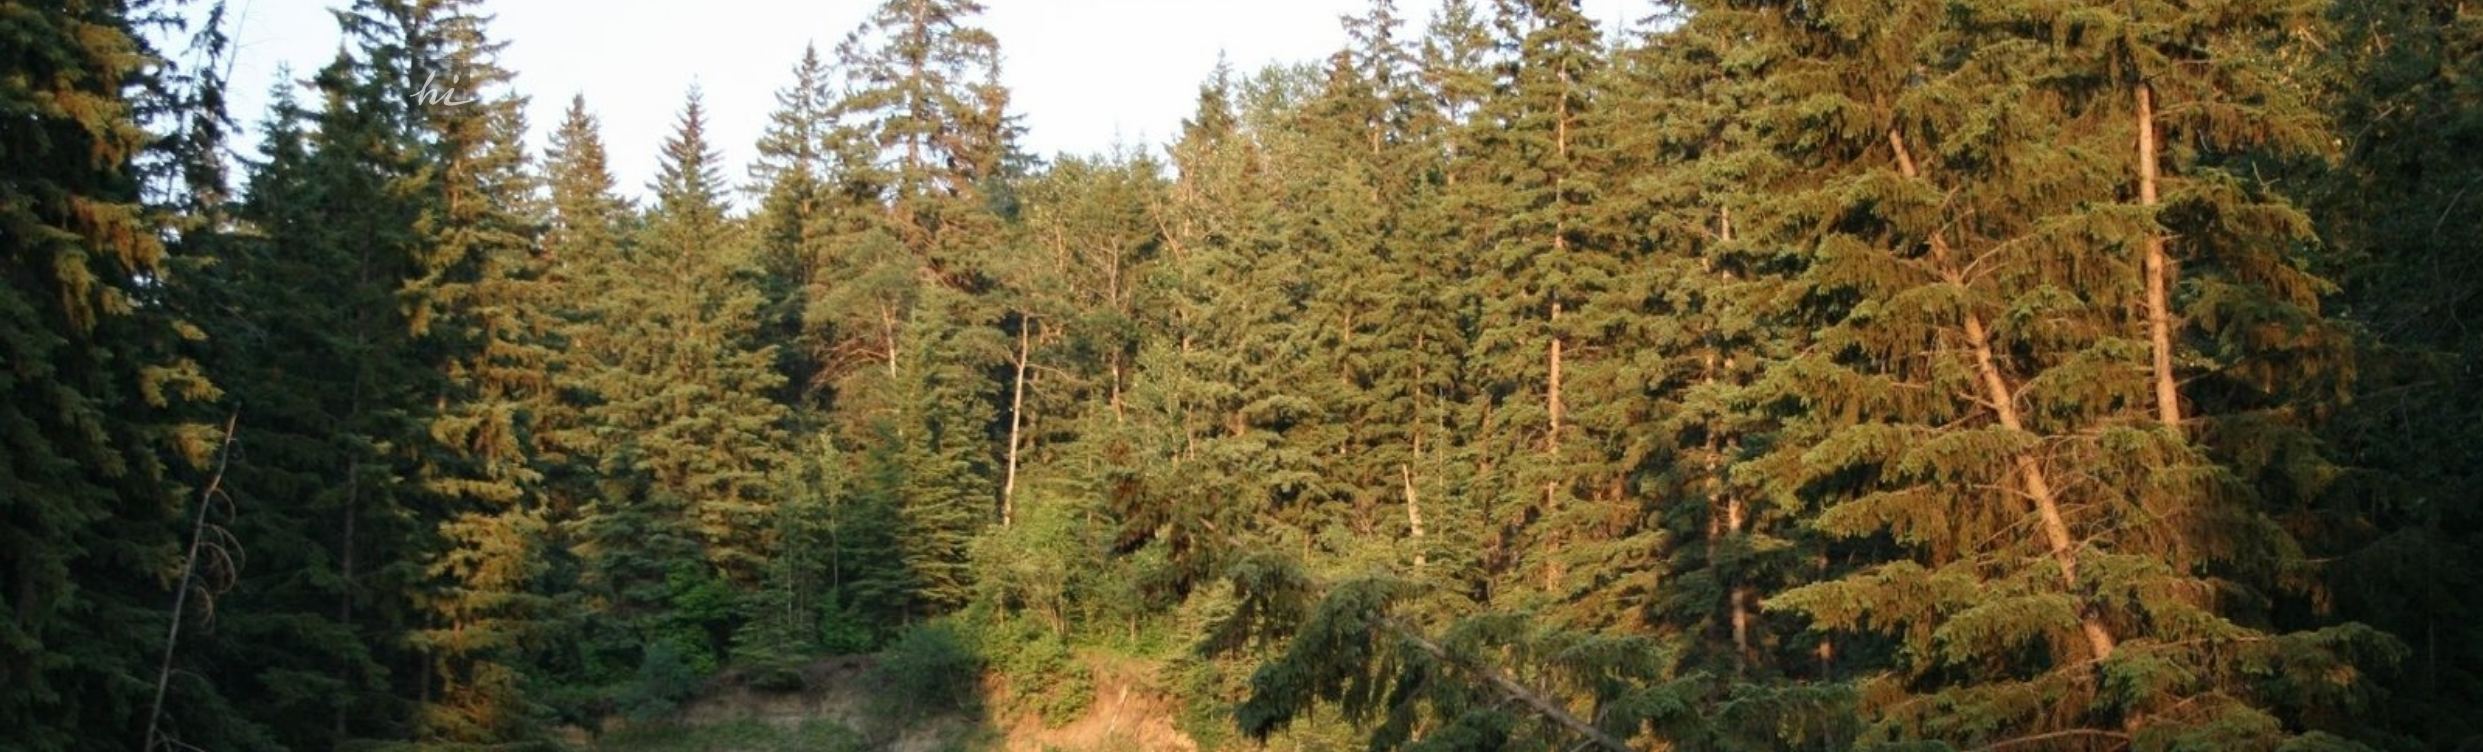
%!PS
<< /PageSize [2483 752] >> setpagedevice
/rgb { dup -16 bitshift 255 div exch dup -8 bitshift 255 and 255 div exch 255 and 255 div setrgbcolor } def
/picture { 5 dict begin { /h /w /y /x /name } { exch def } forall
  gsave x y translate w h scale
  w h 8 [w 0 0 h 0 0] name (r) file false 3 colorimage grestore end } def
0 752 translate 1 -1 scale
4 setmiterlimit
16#FFFFFF rgb
0 0 2483 752 rectfill
(pic1.raw) 0 0 2483 752 picture
(pic2.raw) 410 59 60 59 picture
showpage
